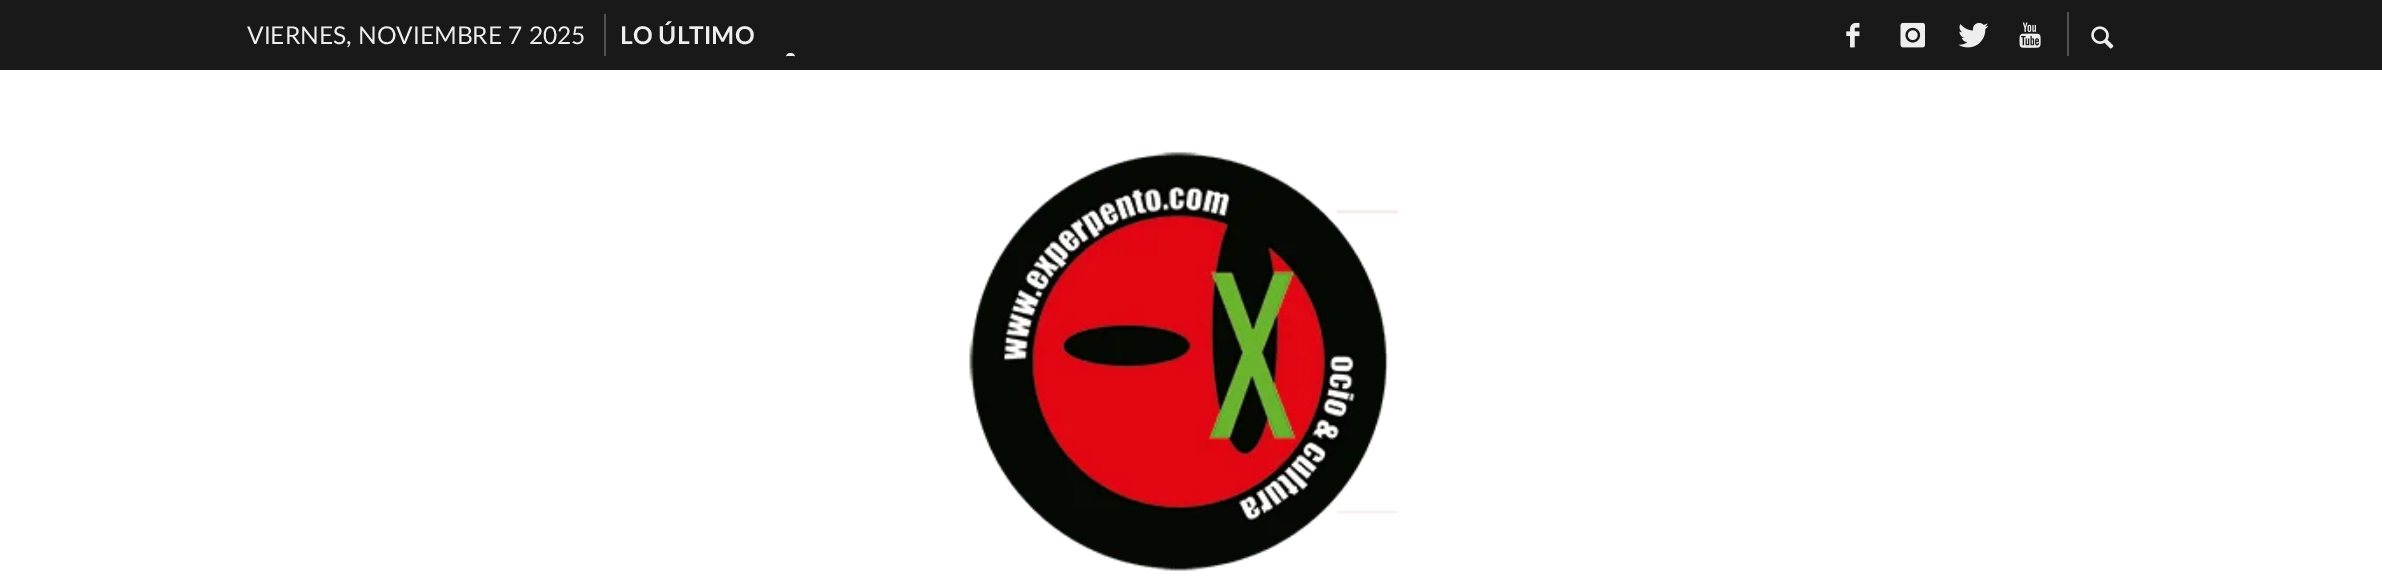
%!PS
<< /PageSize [2382 588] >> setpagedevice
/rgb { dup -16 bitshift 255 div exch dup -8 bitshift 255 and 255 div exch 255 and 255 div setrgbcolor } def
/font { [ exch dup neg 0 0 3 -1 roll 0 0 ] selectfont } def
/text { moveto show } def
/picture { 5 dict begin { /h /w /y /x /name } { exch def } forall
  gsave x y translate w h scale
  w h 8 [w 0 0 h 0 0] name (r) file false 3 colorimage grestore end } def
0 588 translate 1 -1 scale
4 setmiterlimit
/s1 { /Lato-Regular 24.5 font 16#EEEEEE rgb } def
/s2 { /Lato-Bold 24.5 font 16#EEEEEE rgb } def
16#FFFFFF rgb
0 0 2382 588 rectfill
16#191919 rgb
0 0 2382 70 rectfill
16#515151 rgb
604 14 2 42 rectfill
s1
(VIERNES, NOVIEMBRE 7 2025) 247 44 text
s2
(LO ÚLTIMO) 620 44 text
790 53 moveto 791 53 lineto 793 53 795 55 795 57 curveto 795 56 lineto 786 56 lineto 786 57 lineto 786 55 788 53 790 53 curveto closepath fill
(pic1.raw) 1846 22 14 26 picture
(pic2.raw) 1900 22 25 26 picture
(pic3.raw) 1958 22 31 26 picture
(pic4.raw) 2019 22 22 26 picture
16#515151 rgb
2067 12 2 44 rectfill
(pic5.raw) 2091 26 23 23 picture
(pic6.raw) 969 151 429 420 picture
showpage
